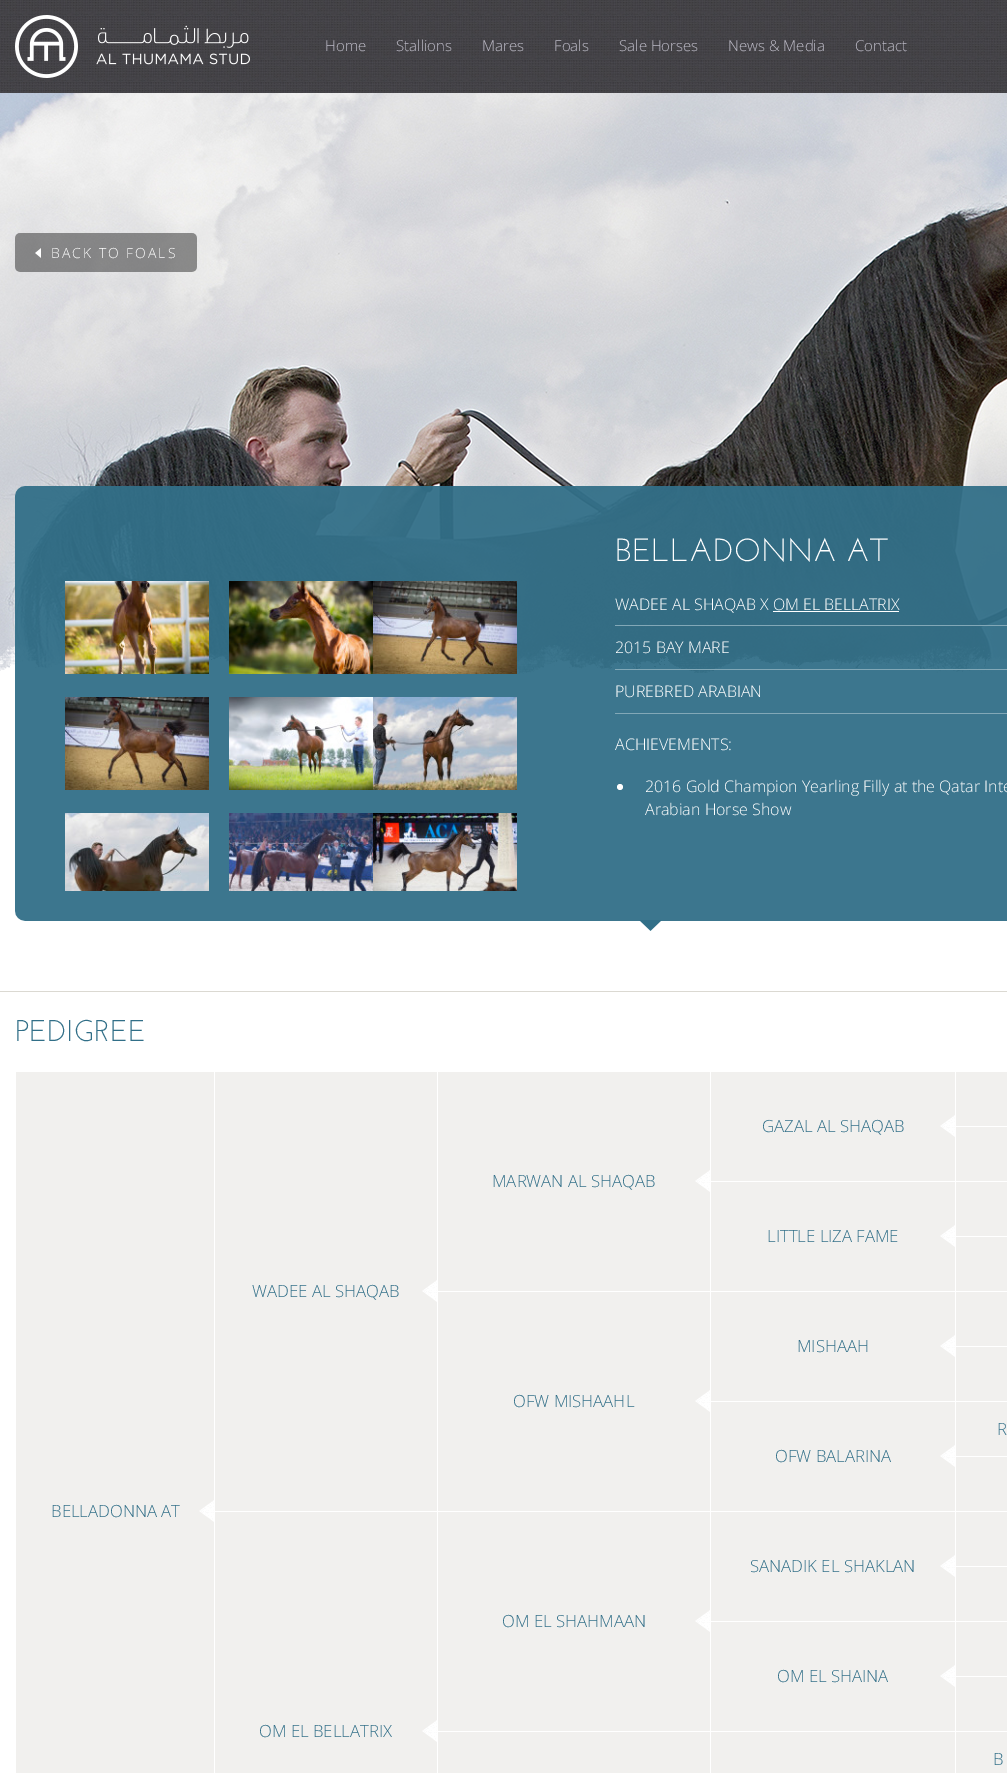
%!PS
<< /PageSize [1007 1773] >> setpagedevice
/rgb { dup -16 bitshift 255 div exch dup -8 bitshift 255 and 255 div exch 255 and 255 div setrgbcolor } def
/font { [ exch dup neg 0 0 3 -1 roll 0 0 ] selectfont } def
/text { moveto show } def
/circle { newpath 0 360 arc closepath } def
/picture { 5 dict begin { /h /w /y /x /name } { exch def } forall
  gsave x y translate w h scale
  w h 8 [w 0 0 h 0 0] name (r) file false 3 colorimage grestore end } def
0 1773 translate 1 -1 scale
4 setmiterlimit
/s1 { /OpenSans-Light 15 font 16#BEBCC8 rgb } def
/s2 { /JosefinSans-Regular 32 font 16#FFFFFF rgb } def
/s3 { /OpenSans-Light 16 font 16#FFFFFF rgb } def
/s4 { /JosefinSans-Regular 30 font 16#316F88 rgb } def
/s5 { /OpenSans-Light 16.75 font 16#316F88 rgb } def
16#FFFFFF rgb
0 0 1007 1773 rectfill
(pic1.raw) 0 0 1007 93 picture
(pic2.raw) 0 0 1007 93 picture
(pic3.raw) 15 15 235 63 picture
s1
(Home) 325 51 text
(Stallions) 396 51 text
(Mares) 482 51 text
(Foals) 554 51 text
(Sale Horses) 619 51 text
(News & Media) 728 51 text
(Contact) 855 51 text
(pic4.raw) 0 93 1007 581 picture
(pic5.raw) 15 233 182 39 picture
(pic6.raw) 35 248 6 10 picture
/OpenSans-Light 14 font
16#FFFFFF rgb
51 258 moveto 2 0 (BACK TO FOALS) ashow
(pic7.raw) 0 642 1007 39 picture
(pic8.raw) 15 486 992 435 picture
(pic9.raw) 65 581 144 93 picture
(pic10.raw) 229 581 144 93 picture
(pic11.raw) 373 581 144 93 picture
(pic12.raw) 65 697 144 93 picture
(pic13.raw) 229 697 144 93 picture
(pic14.raw) 373 697 144 93 picture
(pic15.raw) 65 813 144 78 picture
(pic16.raw) 229 813 144 78 picture
(pic17.raw) 373 813 144 78 picture
s2
(BELLADONNA AT) 615 561 text
16#82A8B7 rgb
615 625 392 1 rectfill
s3
(WADEE AL SHAQAB X OM EL BELLATRIX) 615 610 text
773 611 126 1 rectfill
16#82A8B7 rgb
615 669 392 1 rectfill
s3
(2015 BAY MARE) 615 653 text
16#82A8B7 rgb
615 713 392 1 rectfill
s3
(PUREBRED ARABIAN) 615 697 text
(ACHIEVEMENTS:) 615 750 text
620 787 3 circle fill
(2016 Gold Champion Yearling Filly at the Qatar Inte) 645 792 text
(Arabian Horse Show) 645 815 text
(pic18.raw) 639 920 23 11 picture
16#DBD9D2 rgb
0 991 1007 1 rectfill
s4
(PEDIGREE) 15 1041 text
16#F1F0EE rgb
711 1072 244 109 rectfill
(pic19.raw) 940 1115 15 22 picture
s5
(GAZAL AL SHAQAB) 762 1132 text
16#F1F0EE rgb
956 1072 51 54 rectfill
438 1072 272 219 rectfill
(pic19.raw) 695 1170 15 22 picture
s5
(MARWAN AL SHAQAB) 492 1187 text
16#F1F0EE rgb
215 1072 222 439 rectfill
(pic19.raw) 422 1280 15 22 picture
s5
(WADEE AL SHAQAB) 252 1297 text
16#F1F0EE rgb
16 1072 198 701 rectfill
(pic19.raw) 199 1500 15 22 picture
s5
(BELLADONNA AT) 51 1517 text
16#F1F0EE rgb
956 1127 51 54 rectfill
711 1182 244 109 rectfill
(pic19.raw) 940 1225 15 22 picture
s5
(LITTLE LIZA FAME) 767 1242 text
16#F1F0EE rgb
956 1182 51 54 rectfill
956 1237 51 54 rectfill
711 1292 244 109 rectfill
(pic19.raw) 940 1335 15 22 picture
s5
(MISHAAH) 797 1352 text
16#F1F0EE rgb
956 1292 51 54 rectfill
438 1292 272 219 rectfill
(pic19.raw) 695 1390 15 22 picture
s5
(OFW MISHAAHL) 513 1407 text
16#F1F0EE rgb
956 1347 51 54 rectfill
956 1402 51 54 rectfill
s5
(R) 997 1435 text
16#F1F0EE rgb
711 1402 244 109 rectfill
(pic19.raw) 940 1445 15 22 picture
s5
(OFW BALARINA) 775 1462 text
16#F1F0EE rgb
956 1457 51 54 rectfill
711 1512 244 109 rectfill
(pic19.raw) 940 1555 15 22 picture
s5
(SANADIK EL SHAKLAN) 750 1572 text
16#F1F0EE rgb
956 1512 51 54 rectfill
438 1512 272 219 rectfill
(pic19.raw) 695 1610 15 22 picture
s5
(OM EL SHAHMAAN) 502 1627 text
16#F1F0EE rgb
215 1512 222 261 rectfill
(pic19.raw) 422 1720 15 22 picture
s5
(OM EL BELLATRIX) 259 1737 text
16#F1F0EE rgb
956 1567 51 54 rectfill
711 1622 244 109 rectfill
(pic19.raw) 940 1665 15 22 picture
s5
(OM EL SHAINA) 777 1682 text
16#F1F0EE rgb
956 1622 51 54 rectfill
956 1677 51 54 rectfill
438 1732 272 41 rectfill
711 1732 244 41 rectfill
956 1732 51 41 rectfill
s5
(B) 993 1765 text
showpage
